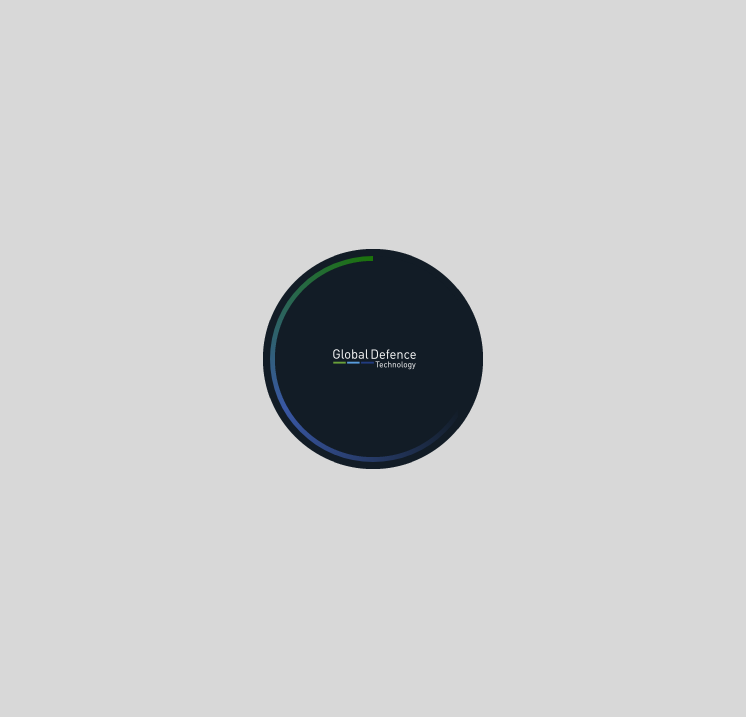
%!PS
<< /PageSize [746 717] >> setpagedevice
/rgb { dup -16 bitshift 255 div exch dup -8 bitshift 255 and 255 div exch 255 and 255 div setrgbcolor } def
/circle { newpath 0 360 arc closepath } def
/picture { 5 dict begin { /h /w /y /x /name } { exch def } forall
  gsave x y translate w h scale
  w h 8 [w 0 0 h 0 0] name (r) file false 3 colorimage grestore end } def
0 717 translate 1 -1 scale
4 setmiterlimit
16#D8D8D8 rgb
0 0 746 717 rectfill
16#121C26 rgb
373 359 110 circle fill
(pic1.raw) 270 256 188 206 picture
373 359 98 circle fill
(pic2.raw) 333 349 83 21 picture
showpage
